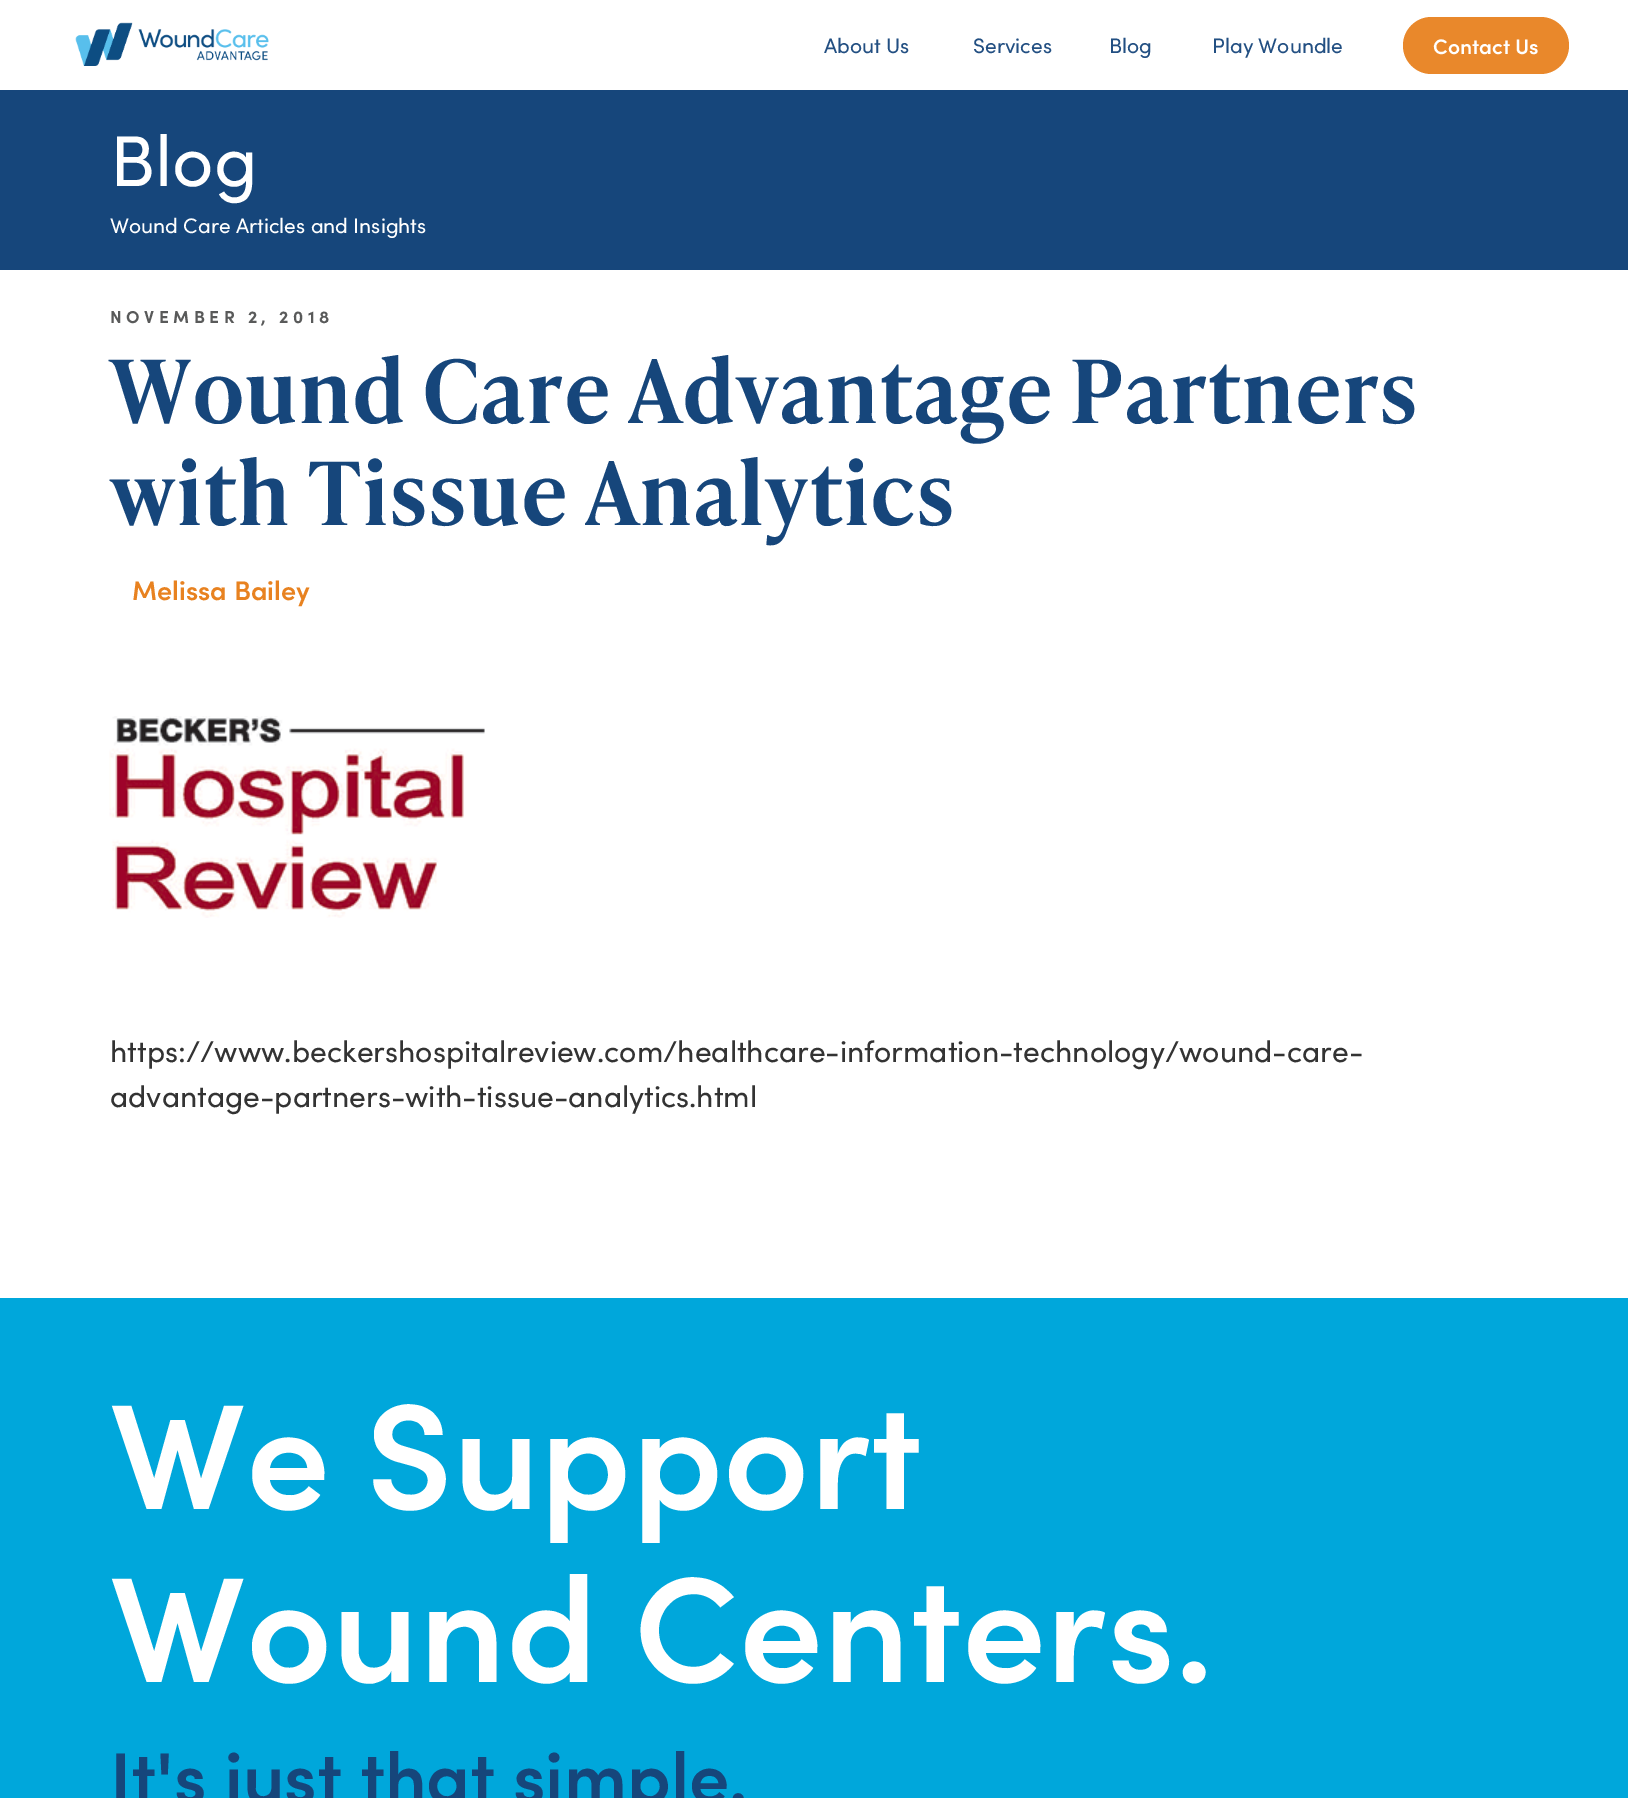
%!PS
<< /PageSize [1628 1798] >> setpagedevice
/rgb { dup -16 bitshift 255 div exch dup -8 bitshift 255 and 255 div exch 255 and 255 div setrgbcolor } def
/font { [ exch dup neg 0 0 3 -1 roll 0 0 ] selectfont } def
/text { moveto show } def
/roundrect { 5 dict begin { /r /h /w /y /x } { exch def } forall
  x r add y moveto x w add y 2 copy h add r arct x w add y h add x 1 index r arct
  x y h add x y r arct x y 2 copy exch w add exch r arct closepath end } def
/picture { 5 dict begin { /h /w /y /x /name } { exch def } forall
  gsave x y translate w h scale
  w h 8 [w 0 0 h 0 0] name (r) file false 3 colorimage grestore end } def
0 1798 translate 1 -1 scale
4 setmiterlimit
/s1 { /Sofia-Regular 21 font 16#224F82 rgb } def
/s2 { /Sofia-SemiBold 21 font 16#FFFFFF rgb } def
/s3 { /Sofia-Regular 72 font 16#FFFFFF rgb } def
/s4 { /Sofia-Regular 21 font 16#FFFFFF rgb } def
/s5 { /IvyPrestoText-SemiBold 87 font 16#16467B rgb } def
/s6 { /Sofia-SemiBold 27 font 16#E88220 rgb } def
/s7 { /Sofia-Regular 30 font 16#333333 rgb } def
/s8 { /Sofia-SemiBold 150 font 16#FFFFFF rgb } def
/s9 { /Sofia-SemiBold 72 font 16#16467B rgb } def
16#FFFFFF rgb
0 0 1628 1798 rectfill
(pic1.raw) 75 22 194 44 picture
s1
(About Us) 824 53 text
(Services) 973 53 text
(Blog) 1109 53 text
(Play Woundle) 1212 53 text
16#E9882B rgb
1403 17 166 57 28.5 roundrect fill
s2
(Contact Us) 1433 54 text
16#16467B rgb
0 90 1628 180 rectfill
s3
(Blog) 110 186 text
s4
(Wound Care Articles and Insights) 110 233 text
/Sofia-Bold 17.25 font
16#595A5A rgb
110 323 moveto 4.5 0 (NOVEMBER 2, 2018) ashow
s5
(Wound Care Advantage Partners) 110 423 text
(with Tissue Analytics) 110 525 text
s6
(Melissa Bailey) 132 600 text
(pic2.raw) 109 716 376 202 picture
s7
(https://www.beckershospitalreview.com/healthcare-information-technology/wound-care-) 110 1062 text
(advantage-partners-with-tissue-analytics.html) 110 1107 text
16#00A7DB rgb
0 1298 1628 500 rectfill
s8
(We Support) 110 1509 text
(Wound Centers.) 110 1682 text
s9
(It's just that simple.) 110 1803 text
showpage
